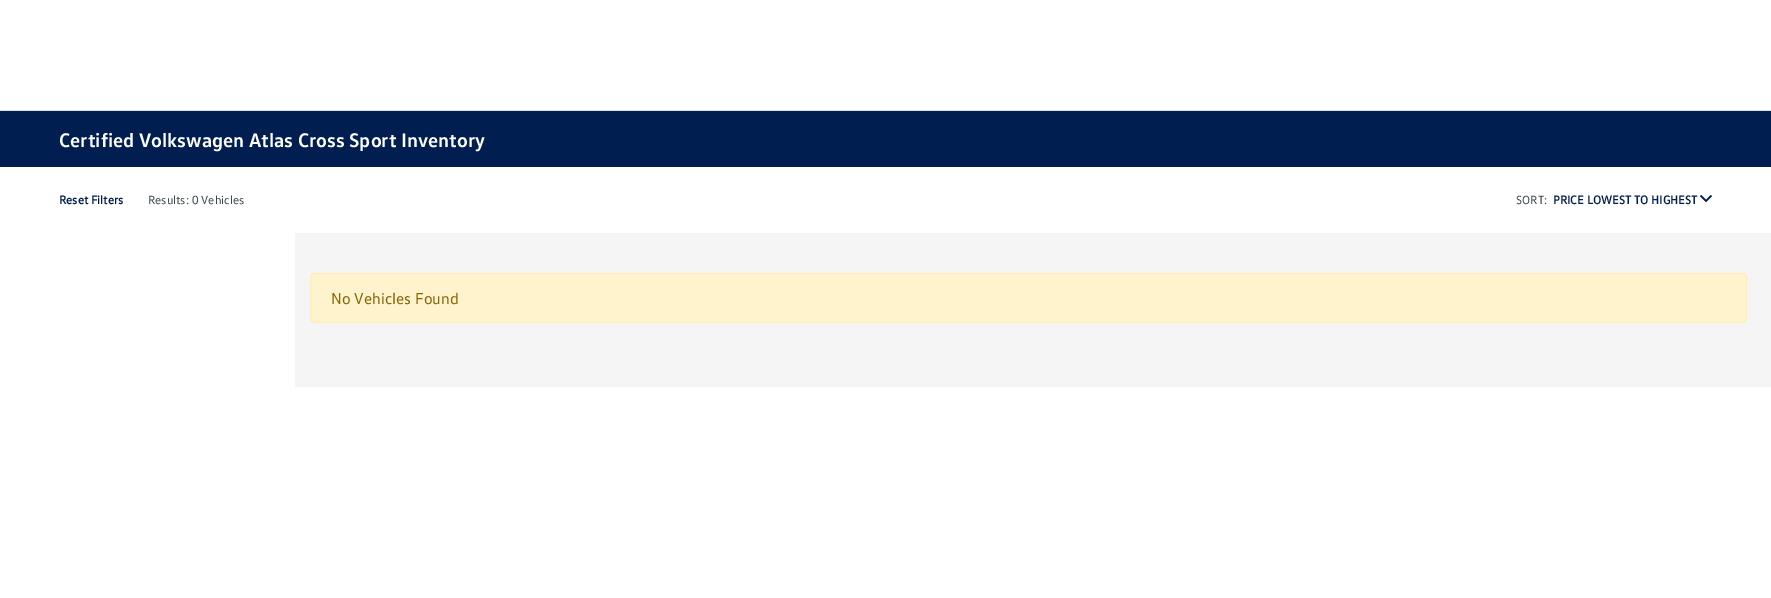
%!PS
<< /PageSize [1771 598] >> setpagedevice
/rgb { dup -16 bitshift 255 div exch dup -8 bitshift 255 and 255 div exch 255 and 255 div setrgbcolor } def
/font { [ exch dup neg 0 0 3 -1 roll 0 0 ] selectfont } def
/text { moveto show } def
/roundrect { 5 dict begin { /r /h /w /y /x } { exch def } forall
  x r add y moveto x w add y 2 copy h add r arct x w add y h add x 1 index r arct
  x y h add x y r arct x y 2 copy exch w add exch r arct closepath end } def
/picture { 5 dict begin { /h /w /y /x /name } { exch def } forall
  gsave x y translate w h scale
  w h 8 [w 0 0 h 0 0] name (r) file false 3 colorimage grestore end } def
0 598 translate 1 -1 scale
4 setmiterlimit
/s1 { /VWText-Bold 20 font 16#FFFFFF rgb } def
/s2 { /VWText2-Bold 12 font 16#001E50 rgb } def
/s3 { /VWText-Regular 12 font 16#3C484D rgb } def
/s4 { /VWText-Regular 16 font 16#856404 rgb } def
16#FFFFFF rgb
0 0 1771 598 rectfill
16#F5F5F5 rgb
295 233 1476 154 rectfill
16#001E50 rgb
0 111 1771 56 rectfill
16#DEE2E6 rgb
0 110 1771 1 rectfill
s1
(Certified Volkswagen Atlas Cross Sport Inventory) 59 147 text
s2
(Reset Filters) 59 204 text
s3
(Results: 0 Vehicles) 148 204 text
(SORT:) 1516 204 text
s2
(PRICE LOWEST TO HIGHEST) 1553 204 text
(pic1.raw) 1700 195 12 8 picture
16#FFF3CD rgb
310.5 273.5 1436 49 3.5 roundrect gsave fill grestore
16#FFEEBA rgb
stroke
s4
(No Vehicles Found) 331 304 text
showpage
